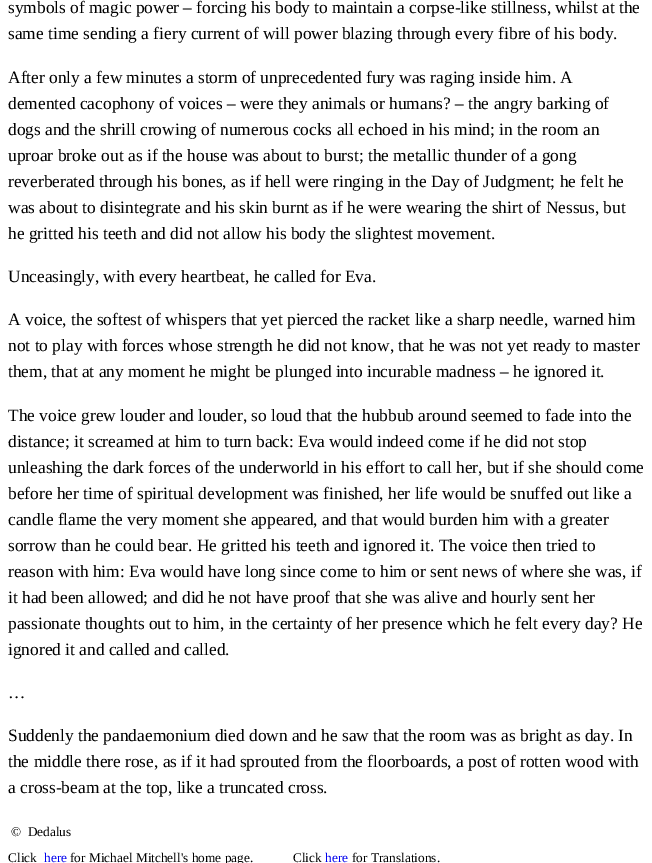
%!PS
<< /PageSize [652 863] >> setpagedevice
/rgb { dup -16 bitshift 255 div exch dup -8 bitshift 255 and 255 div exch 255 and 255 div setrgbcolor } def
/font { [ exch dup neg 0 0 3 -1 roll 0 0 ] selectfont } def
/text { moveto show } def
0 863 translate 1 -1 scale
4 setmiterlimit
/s1 { /LiberationSerif-Regular 17.35 font 16#000000 rgb } def
/s2 { /LiberationSerif-Regular 13.3 font 16#000000 rgb } def
/s3 { /LiberationSerif-Regular 13.3 font 16#0000EE rgb } def
16#FFFFFF rgb
0 0 652 863 rectfill
s1
(symbols of magic power – forcing his body to maintain a corpse-like stillness, whilst at the) 8 13 text
(same time sending a fiery current of will power blazing through every fibre of his body.) 8 39 text
(After only a few minutes a storm of unprecedented fury was raging inside him. A) 8 83 text
(demented cacophony of voices – were they animals or humans? – the angry barking of) 8 109 text
(dogs and the shrill crowing of numerous cocks all echoed in his mind; in the room an) 8 135 text
(uproar broke out as if the house was about to burst; the metallic thunder of a gong) 8 161 text
(reverberated through his bones, as if hell were ringing in the Day of Judgment; he felt he) 8 187 text
(was about to disintegrate and his skin burnt as if he were wearing the shirt of Nessus, but) 8 213 text
(he gritted his teeth and did not allow his body the slightest movement.) 8 239 text
(Unceasingly, with every heartbeat, he called for Eva.) 8 282 text
(A voice, the softest of whispers that yet pierced the racket like a sharp needle, warned him) 8 325 text
(not to play with forces whose strength he did not know, that he was not yet ready to master) 8 351 text
(them, that at any moment he might be plunged into incurable madness – he ignored it.) 8 377 text
(The voice grew louder and louder, so loud that the hubbub around seemed to fade into the) 8 421 text
(distance; it screamed at him to turn back: Eva would indeed come if he did not stop) 8 447 text
(unleashing the dark forces of the underworld in his effort to call her, but if she should come) 8 473 text
(before her time of spiritual development was finished, her life would be snuffed out like a) 8 499 text
(candle flame the very moment she appeared, and that would burden him with a greater) 8 525 text
(sorrow than he could bear. He gritted his teeth and ignored it. The voice then tried to) 8 551 text
(reason with him: Eva would have long since come to him or sent news of where she was, if) 8 577 text
(it had been allowed; and did he not have proof that she was alive and hourly sent her) 8 603 text
(passionate thoughts out to him, in the certainty of her presence which he felt every day? He) 8 629 text
(ignored it and called and called.) 8 655 text
(…) 8 698 text
(Suddenly the pandaemonium died down and he saw that the room was as bright as day. In) 8 741 text
(the middle there rose, as if it had sprouted from the floorboards, a post of rotten wood with) 8 767 text
(a cross-beam at the top, like a truncated cross.) 8 793 text
s2
(©  Dedalus) 11 836 text
(Click) 8 862 text
s3
(here) 44 862 text
s2
(for Michael Mitchell's home page.            Click) 70 862 text
s3
(here) 325 862 text
s2
(for Translations.) 352 862 text
showpage
